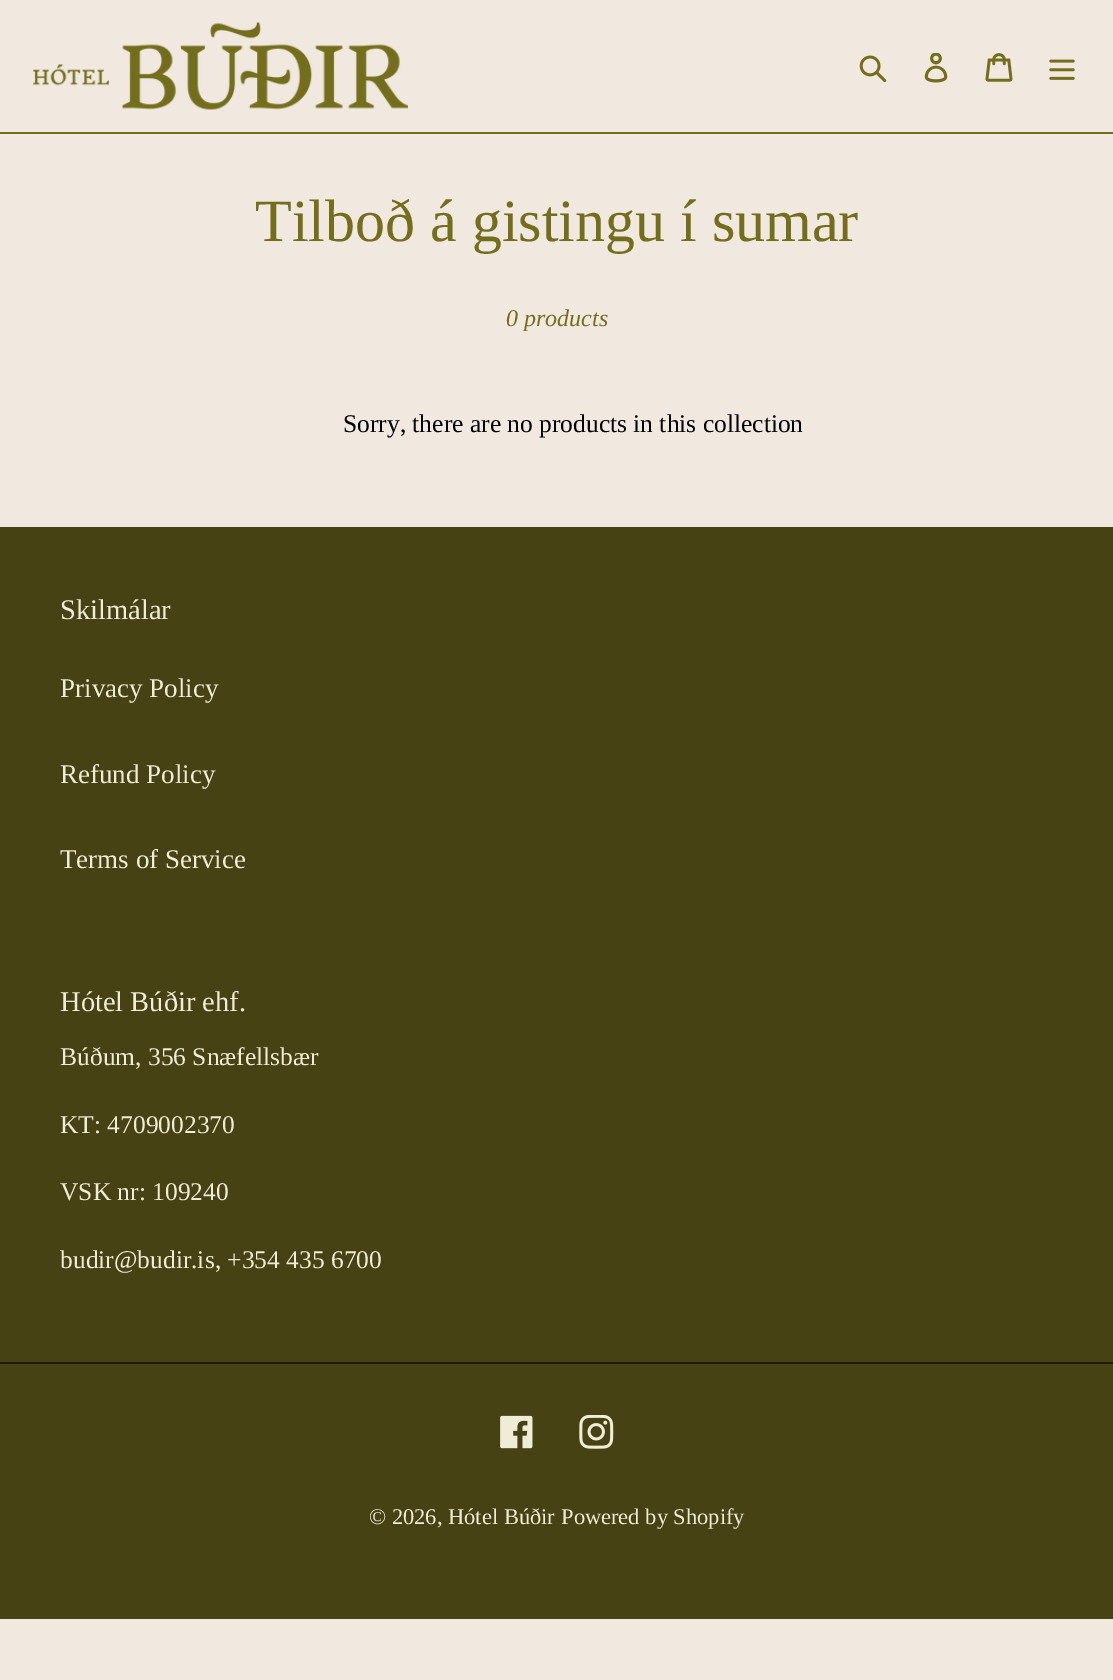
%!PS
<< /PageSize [1113 1680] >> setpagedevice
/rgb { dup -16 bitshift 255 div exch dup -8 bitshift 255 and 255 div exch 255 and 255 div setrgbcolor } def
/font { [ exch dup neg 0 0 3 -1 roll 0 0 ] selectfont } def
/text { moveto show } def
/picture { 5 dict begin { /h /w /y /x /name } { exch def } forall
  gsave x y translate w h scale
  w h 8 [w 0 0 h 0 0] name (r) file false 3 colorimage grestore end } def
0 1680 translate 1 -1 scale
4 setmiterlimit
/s1 { /LiberationSerif-Regular 60 font 16#736E1C rgb } def
/s2 { /LiberationSerif-Italic 24 font 16#736E1C rgb } def
/s3 { /LiberationSerif-Regular 25.5 font 16#000000 rgb } def
/s4 { /LiberationSerif-Regular 28.5 font 16#F1ECD7 rgb } def
/s5 { /LiberationSerif-Regular 27 font 16#F1ECD7 rgb } def
/s6 { /LiberationSerif-Regular 25.5 font 16#F1ECD7 rgb } def
/s7 { /LiberationSerif-Regular 22.5 font 16#F1ECD7 rgb } def
16#F1E8E0 rgb
0 0 1113 1680 rectfill
16#736E1C rgb
0 132 1113 2 rectfill
(pic1.raw) 33 22 375 88 picture
(pic2.raw) 859 55 28 28 picture
(pic3.raw) 924 53 24 30 picture
(pic4.raw) 985 53 28 29 picture
(pic5.raw) 1049 59 26 21 picture
s1
(Tilboð á gistingu í sumar) 255 241 text
s2
(0 products) 506 326 text
s3
(Sorry, there are no products in this collection) 343 432 text
16#474213 rgb
0 527 1113 1092 rectfill
s4
(Skilmálar) 60 619 text
s5
(Privacy Policy) 60 697 text
(Refund Policy) 60 783 text
(Terms of Service) 60 868 text
s4
(Hótel Búðir ehf.) 60 1011 text
s6
(Búðum, 356 Snæfellsbær) 60 1065 text
(KT: 4709002370) 60 1133 text
(VSK nr: 109240) 60 1200 text
(budir@budir.is, +354 435 6700) 60 1268 text
16#1F1D08 rgb
0 1362 1113 2 rectfill
(pic6.raw) 500 1415 33 34 picture
(pic7.raw) 579 1415 35 34 picture
s7
(© 2026, Hótel Búðir) 369 1524 text
(Powered by Shopify) 561 1524 text
showpage
